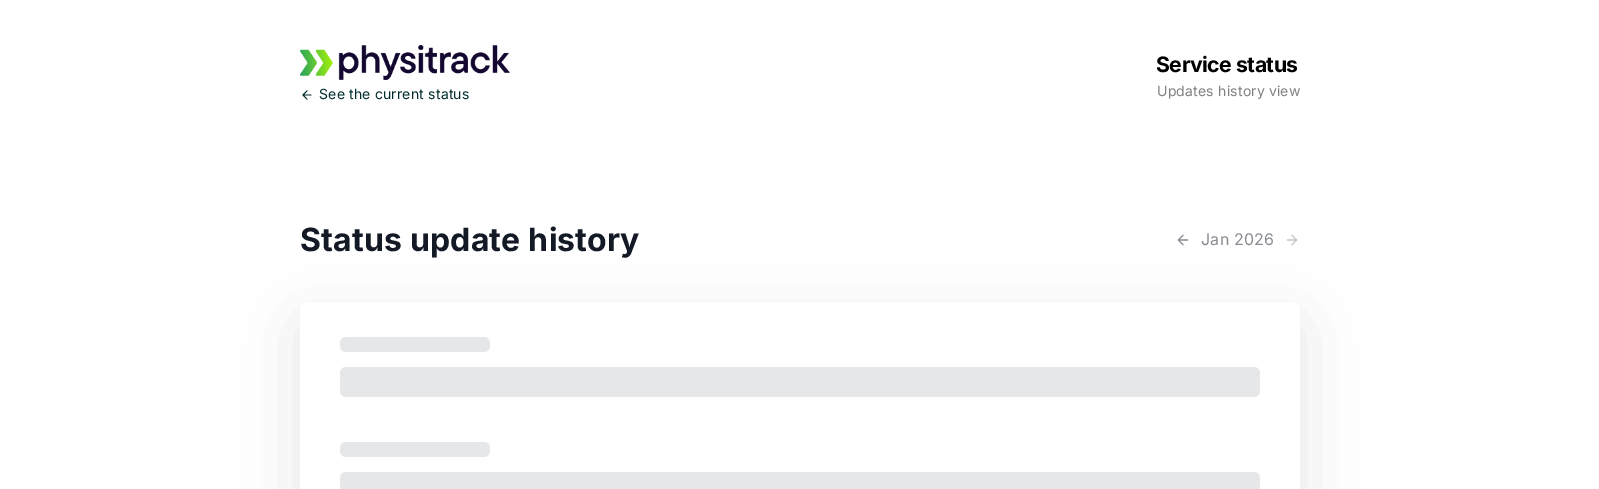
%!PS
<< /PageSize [1599 489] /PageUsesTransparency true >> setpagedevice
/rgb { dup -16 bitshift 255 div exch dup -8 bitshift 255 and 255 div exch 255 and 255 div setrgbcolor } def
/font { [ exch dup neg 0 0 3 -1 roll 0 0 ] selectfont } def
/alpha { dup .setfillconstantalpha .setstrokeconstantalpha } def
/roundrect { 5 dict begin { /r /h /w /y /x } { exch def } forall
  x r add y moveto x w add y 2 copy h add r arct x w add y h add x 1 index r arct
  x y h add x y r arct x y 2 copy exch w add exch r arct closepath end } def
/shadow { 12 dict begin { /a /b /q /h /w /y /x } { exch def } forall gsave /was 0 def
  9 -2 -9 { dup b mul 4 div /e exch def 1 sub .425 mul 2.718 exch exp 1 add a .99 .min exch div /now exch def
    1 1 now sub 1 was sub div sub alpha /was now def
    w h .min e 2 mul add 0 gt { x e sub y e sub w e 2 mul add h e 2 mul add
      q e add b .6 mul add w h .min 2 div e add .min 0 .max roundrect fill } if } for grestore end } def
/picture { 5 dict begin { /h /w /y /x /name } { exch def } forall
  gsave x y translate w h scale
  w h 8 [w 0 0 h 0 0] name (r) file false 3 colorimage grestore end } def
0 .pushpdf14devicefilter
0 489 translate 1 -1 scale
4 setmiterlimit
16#FFFFFF rgb
0 0 1599 489 rectfill
(pic1.raw) 300 45 210 35 picture
(pic2.raw) 302 90 10 10 picture
/Inter-Regular 14 font
16#002B2D rgb
319 99 moveto 0.2 0 (See the current status) ashow
/Inter-Bold 21.25 font
16#000000 rgb
1156 72 moveto -0.5 0 (Service status) ashow
/Inter-Regular 14 font
16#808080 rgb
1157 96 moveto 0.2 0 (Updates history view) ashow
gsave
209 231 moveto 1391 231 lineto 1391 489 lineto 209 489 lineto closepath 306 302 moveto 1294 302 lineto 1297.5 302 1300 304.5 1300 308 curveto 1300 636 lineto 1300 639.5 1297.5 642 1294 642 curveto 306 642 lineto 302.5 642 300 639.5 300 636 curveto 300 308 lineto 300 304.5 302.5 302 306 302 curveto closepath eoclip newpath
16#000000 rgb
300 322 1000 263 6 30 0.1 shadow
grestore
/Inter-Bold 32 font
16#131A26 rgb
300 251 moveto 0.2 0 (Status update history) ashow
(pic3.raw) 1177 234 12 12 picture
/Inter-Regular 16 font
16#898C92 rgb
1201 245 moveto 0.2 0 (Jan 2026) ashow
(pic4.raw) 1286 234 12 12 picture
16#E6E7E8 rgb
340 337 150 15 6 roundrect fill
340 367 920 30 6 roundrect fill
340 442 150 15 6 roundrect fill
340 472 920 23 6 roundrect fill
.poppdf14devicefilter showpage
